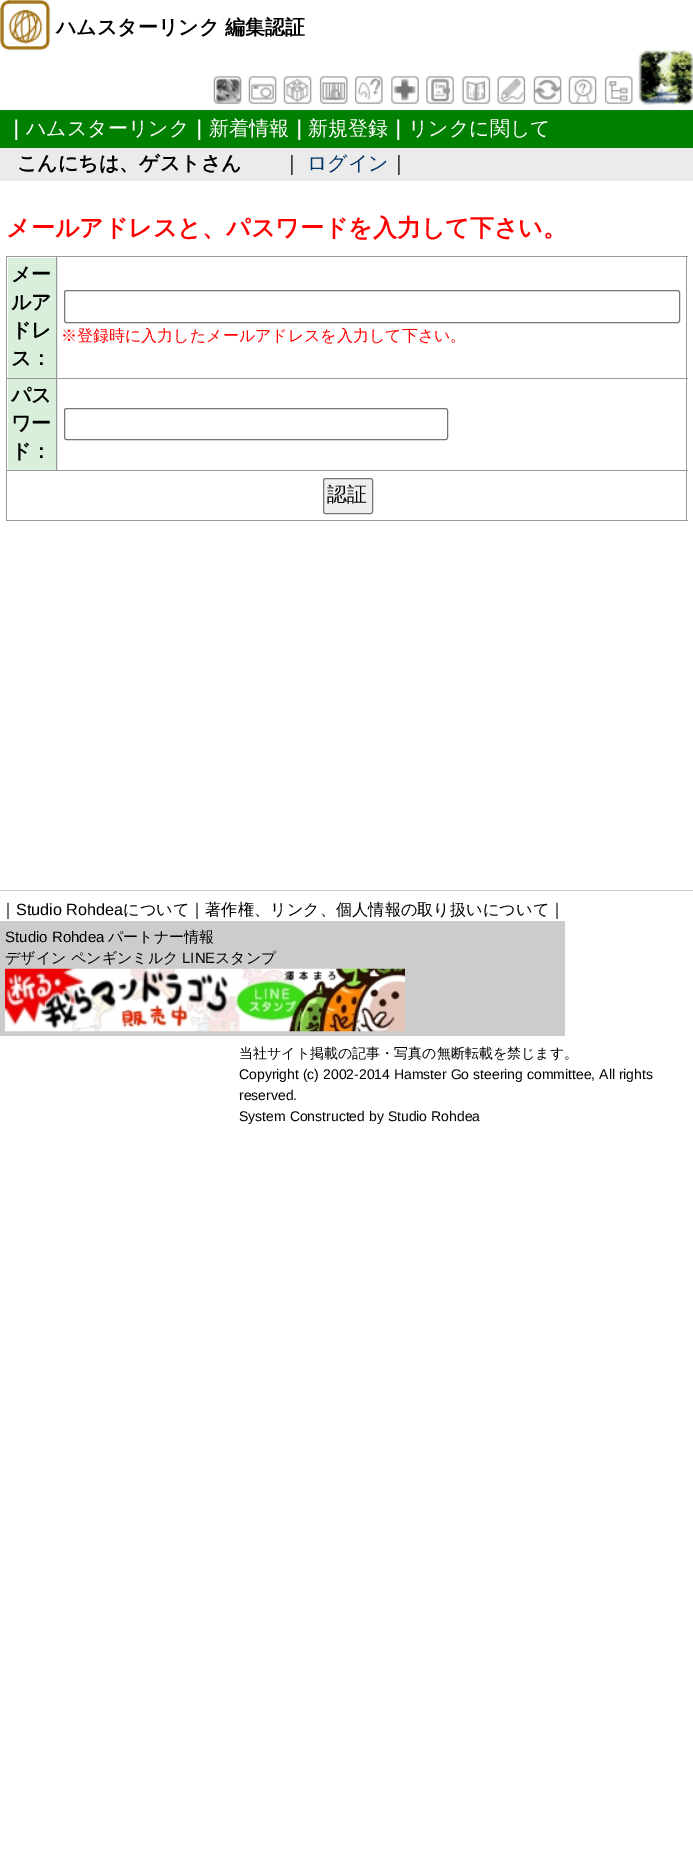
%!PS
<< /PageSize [693 1858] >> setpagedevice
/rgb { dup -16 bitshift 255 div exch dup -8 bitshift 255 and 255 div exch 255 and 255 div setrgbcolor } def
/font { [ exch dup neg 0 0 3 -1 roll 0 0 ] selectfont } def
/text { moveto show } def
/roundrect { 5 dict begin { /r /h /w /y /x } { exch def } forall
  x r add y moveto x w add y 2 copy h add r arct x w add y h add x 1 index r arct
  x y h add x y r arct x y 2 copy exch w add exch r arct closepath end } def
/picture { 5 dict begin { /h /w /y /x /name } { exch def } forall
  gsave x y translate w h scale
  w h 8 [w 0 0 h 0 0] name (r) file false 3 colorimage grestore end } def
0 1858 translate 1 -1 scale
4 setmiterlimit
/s1 { /WenQuanYiZenHei-Bold 20 font 16#000000 rgb } def
/s2 { /WenQuanYiZenHei-Bold 20 font 16#FFFFFF rgb } def
/s3 { /WenQuanYiZenHei-Medium 20 font 16#FFFFFF rgb } def
/s4 { /WenQuanYiZenHei-Medium 20 font 16#000000 rgb } def
/s5 { /WenQuanYiZenHei-Medium 20 font 16#003366 rgb } def
/s6 { /WenQuanYiZenHei-Bold 24 font 16#FF0000 rgb } def
/s7 { /WenQuanYiZenHei-Medium 16 font 16#FF0000 rgb } def
/s8 { /WenQuanYiZenHei-Medium 16.2 font 16#000000 rgb } def
/s9 { /LiberationSans-Regular 16.2 font 16#000000 rgb } def
/s10 { /LiberationSans-Regular 15 font 16#000000 rgb } def
/s11 { /WenQuanYiZenHei-Medium 15 font 16#000000 rgb } def
/s12 { /WenQuanYiZenHei-Medium 14 font 16#000000 rgb } def
/s13 { /LiberationSans-Regular 14 font 16#000000 rgb } def
16#FFFFFF rgb
0 0 693 1858 rectfill
(pic1.raw) 0 0 50 50 picture
s1
(ハムスターリンク 編集認証) 56 34 text
(pic2.raw) 213 76 29 28 picture
(pic3.raw) 248 76 29 28 picture
(pic4.raw) 283 76 29 28 picture
(pic5.raw) 319 76 29 28 picture
(pic6.raw) 354 76 29 28 picture
(pic7.raw) 391 76 28 28 picture
(pic8.raw) 426 76 28 28 picture
(pic9.raw) 462 76 29 28 picture
(pic10.raw) 497 76 29 28 picture
(pic11.raw) 533 76 29 28 picture
(pic12.raw) 568 76 29 28 picture
(pic13.raw) 604 76 29 28 picture
(pic14.raw) 638 50 55 55 picture
16#008000 rgb
0 110 693 38 rectfill
s2
(｜) 6 135 text
s3
(ハムスターリンク) 26 135 text
s2
(｜) 189 135 text
s3
(新着情報) 209 135 text
s2
(｜) 289 135 text
s3
(新規登録) 308 135 text
s2
(｜) 388 135 text
s3
(リンクに関して) 408 135 text
16#EBEBEB rgb
0 148 693 33 rectfill
s1
(こんにちは、ゲストさん) 17 170 text
s4
(｜) 282 170 text
s5
(ログイン) 307 170 text
s4
(｜) 389 170 text
s6
(メールアドレスと、パスワードを入力して下さい。) 6 236 text
16#D9EFDB rgb
8 258 50 120 rectfill
16#999999 rgb
56 256 632 1 rectfill
56 378 632 1 rectfill
16#D9EFDB rgb
8 379 50 91 rectfill
16#999999 rgb
6 470 682 1 rectfill
56 378 1 93 rectfill
6 378 52 1 rectfill
56 256 1 123 rectfill
6 256 52 1 rectfill
686 470 1 51 rectfill
6 520 682 1 rectfill
6 470 1 51 rectfill
6 378 1 93 rectfill
6 256 1 123 rectfill
s1
(メー) 11 281 text
(ルア) 11 309 text
(ドレ) 11 337 text
(ス：) 11 365 text
16#999999 rgb
686 378 1 93 rectfill
686 256 1 123 rectfill
16#767676 rgb
64.5 290.5 615 32 2 roundrect stroke
s7
(※登録時に入力したメールアドレスを入力して下さい。) 61 341 text
s1
(パス) 11 402 text
(ワー) 11 430 text
(ド：) 11 458 text
16#767676 rgb
64.5 408.5 383 31 2 roundrect stroke
16#EFEFEF rgb
323.5 478.5 49 35 2 roundrect gsave fill grestore
16#767676 rgb
stroke
s4
(認証) 327 501 text
16#CCCCCC rgb
0 890 693 1 rectfill
s8
(｜) 0 915 text
s9
(Studio Rohdea) 16 915 text
s8
(について｜著作権、リンク、個人情報の取り扱いについて｜) 123 915 text
16#CCCCCC rgb
0 921 565 115 rectfill
s10
(Studio Rohdea) 5 942 text
s11
(パートナー情報) 108 942 text
(デザイン ペンギンミルク) 5 963 text
s10
(LINE) 182 963 text
s11
(スタンプ) 215 963 text
(pic15.raw) 5 968 400 64 picture
s12
(当社サイト掲載の記事・写真の無断転載を禁じます。) 239 1058 text
s13
(Copyright \(c\) 2002-2014 Hamster Go steering committee, All rights) 239 1079 text
(reserved.) 239 1100 text
(System Constructed by Studio Rohdea) 239 1121 text
showpage
